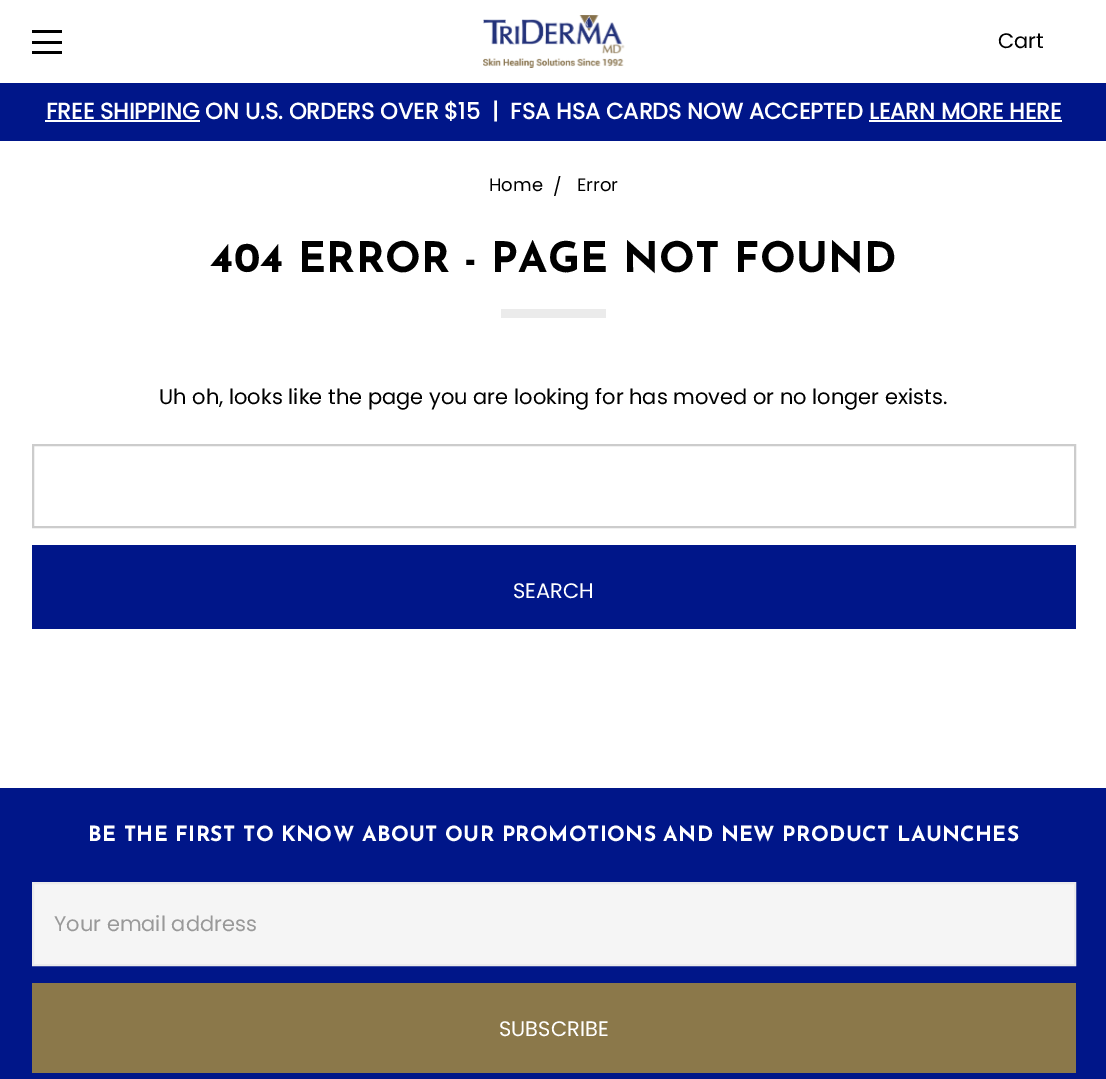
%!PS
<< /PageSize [1106 1079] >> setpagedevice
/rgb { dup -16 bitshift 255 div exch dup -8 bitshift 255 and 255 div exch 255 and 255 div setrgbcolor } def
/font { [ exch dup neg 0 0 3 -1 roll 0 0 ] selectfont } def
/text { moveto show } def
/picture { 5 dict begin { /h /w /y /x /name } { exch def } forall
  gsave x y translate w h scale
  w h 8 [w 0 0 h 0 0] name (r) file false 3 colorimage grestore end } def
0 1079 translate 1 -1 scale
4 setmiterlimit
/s1 { /Poppins-Regular 21 font 16#000000 rgb } def
/s2 { /Poppins-Bold 22.5 font 16#FFFFFF rgb } def
/s3 { /Poppins-Regular 18 font 16#000000 rgb } def
/s4 { /Poppins-Regular 21 font 16#FFFFFF rgb } def
/s5 { /Poppins-Regular 21 font 16#999999 rgb } def
16#FFFFFF rgb
0 0 1106 1079 rectfill
16#000000 rgb
32 41 30 3 rectfill
32 30 30 3 rectfill
32 51 30 3 rectfill
(pic1.raw) 483 15 142 53 picture
s1
(Cart) 998 48 text
16#001689 rgb
0 83 1106 58 rectfill
16#FFFFFF rgb
45 120 155 2 rectfill
s2
(FREE SHIPPING ON U.S. ORDERS OVER $15  |  FSA HSA CARDS NOW ACCEPTED LEARN MORE HERE) 46 119 text
869 120 193 2 rectfill
s3
(Home) 489 191 text
(/) 553 193 text
(Error) 577 191 text
/JosefinSans-Thin 42 font
210 272 moveto 0.38 0 (404 ERROR - PAGE NOT FOUND) ashow
16#EBEBEB rgb
501 309 105 9 rectfill
s1
(Uh oh, looks like the page you are looking for has moved or no longer exists.) 159 404 text
16#CCCCCC rgb
2 setlinewidth
33 445 1042 82 rectstroke
16#001689 rgb
32 545 1044 84 rectfill
s4
(SEARCH) 513 598 text
16#001689 rgb
0 788 1106 291 rectfill
/JosefinSans-Thin 21 font
16#FFFFFF rgb
88 841 moveto 0.38 0 (BE THE FIRST TO KNOW ABOUT OUR PROMOTIONS AND NEW PRODUCT LAUNCHES) ashow
16#F5F5F5 rgb
33 883 moveto 1075 883 lineto 1075 965 lineto 33 965 lineto closepath gsave fill grestore
16#EBEBEB rgb
stroke
s5
(Your email address) 54 931 text
16#8B784A rgb
32 983 1044 90 rectfill
s4
(SUBSCRIBE) 499 1036 text
showpage
